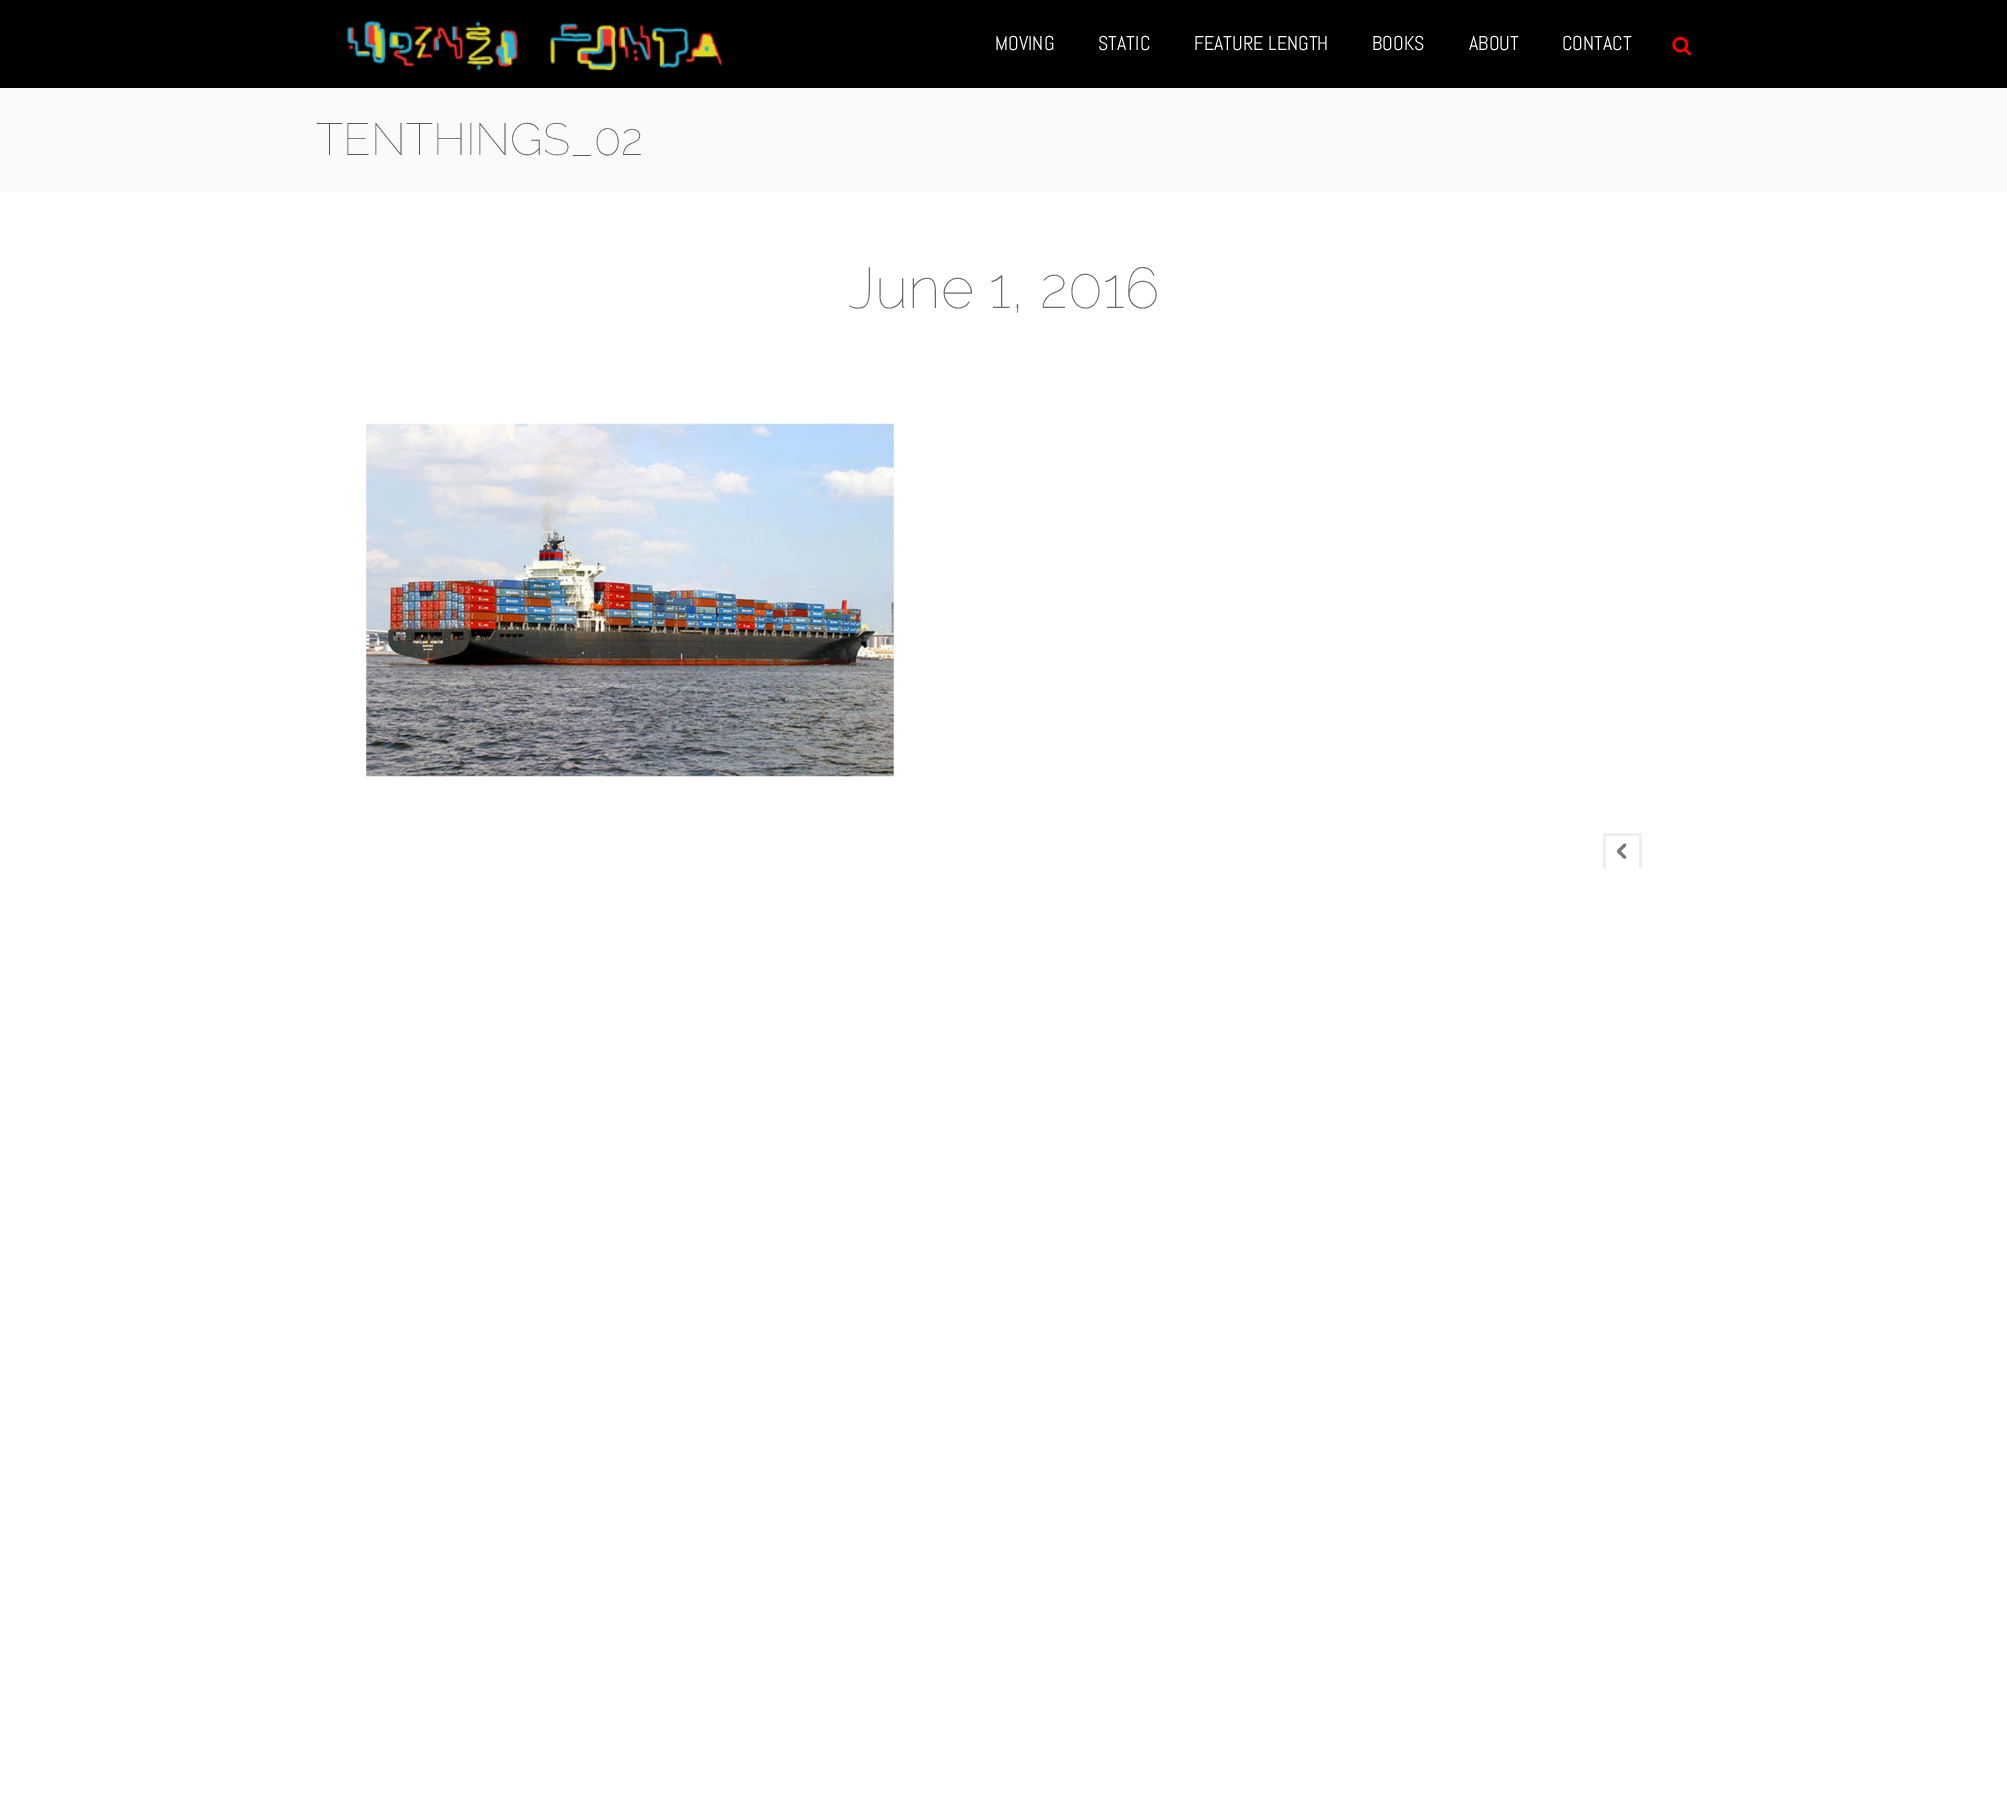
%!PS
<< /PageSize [2007 1810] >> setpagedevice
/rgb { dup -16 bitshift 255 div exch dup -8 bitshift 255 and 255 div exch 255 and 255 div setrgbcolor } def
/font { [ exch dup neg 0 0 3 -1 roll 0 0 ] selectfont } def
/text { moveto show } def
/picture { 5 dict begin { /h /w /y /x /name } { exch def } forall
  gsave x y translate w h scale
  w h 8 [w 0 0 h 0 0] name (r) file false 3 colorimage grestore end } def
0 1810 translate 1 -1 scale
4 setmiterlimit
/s1 { /Abel-Regular 20 font 16#FFFFFF rgb } def
/s2 { /Raleway-Thin 45 font 16#545454 rgb } def
/s3 { /Raleway-Thin 57.5 font 16#696969 rgb } def
16#FFFFFF rgb
0 0 2007 1810 rectfill
16#000000 rgb
0 0 2007 88 rectfill
(pic1.raw) 347 21 375 50 picture
s1
(MOVING) 995 50 text
(STATIC) 1098 50 text
(FEATURE LENGTH) 1194 50 text
(BOOKS) 1372 50 text
(ABOUT) 1469 50 text
(CONTACT) 1562 50 text
(pic2.raw) 1672 36 19 20 picture
16#FAFAFA rgb
0 88 2007 103 rectfill
s2
(TENTHINGS_02) 316 155 text
s3
(June 1, 2016) 848 308 text
(pic3.raw) 366 423 528 354 picture
16#EEEEEE rgb
1603 833 38 3 rectfill
1639 833 3 36 rectfill
1603 833 3 36 rectfill
(pic4.raw) 1616 843 11 16 picture
showpage
